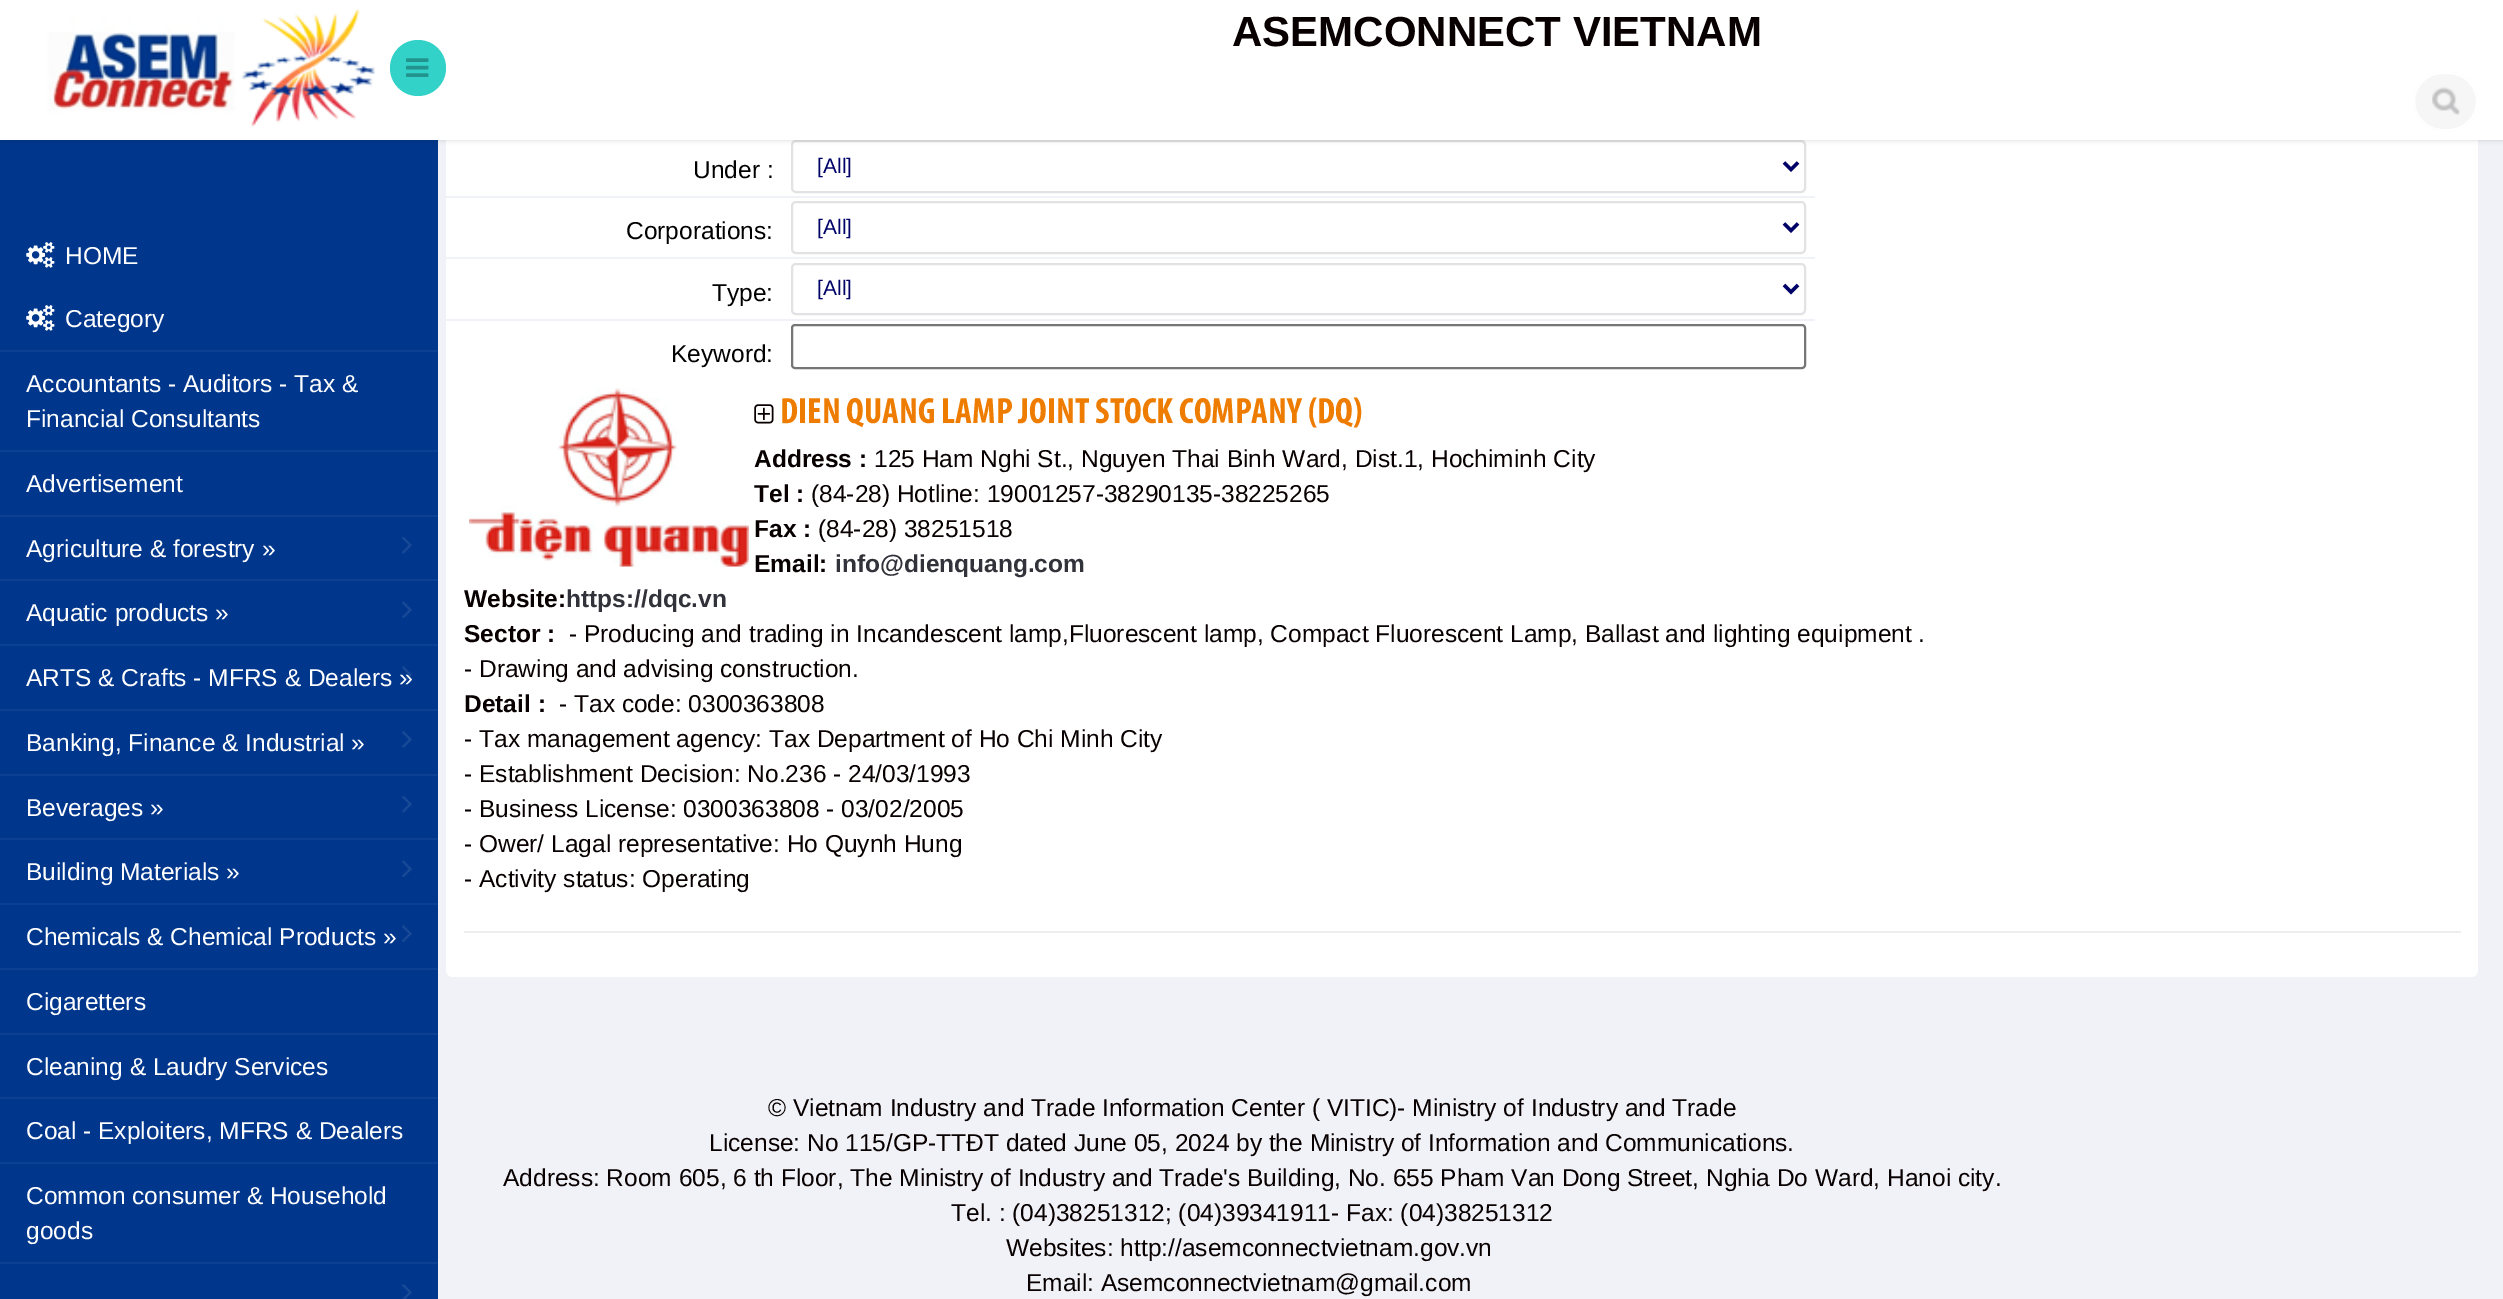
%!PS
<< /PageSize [2503 1299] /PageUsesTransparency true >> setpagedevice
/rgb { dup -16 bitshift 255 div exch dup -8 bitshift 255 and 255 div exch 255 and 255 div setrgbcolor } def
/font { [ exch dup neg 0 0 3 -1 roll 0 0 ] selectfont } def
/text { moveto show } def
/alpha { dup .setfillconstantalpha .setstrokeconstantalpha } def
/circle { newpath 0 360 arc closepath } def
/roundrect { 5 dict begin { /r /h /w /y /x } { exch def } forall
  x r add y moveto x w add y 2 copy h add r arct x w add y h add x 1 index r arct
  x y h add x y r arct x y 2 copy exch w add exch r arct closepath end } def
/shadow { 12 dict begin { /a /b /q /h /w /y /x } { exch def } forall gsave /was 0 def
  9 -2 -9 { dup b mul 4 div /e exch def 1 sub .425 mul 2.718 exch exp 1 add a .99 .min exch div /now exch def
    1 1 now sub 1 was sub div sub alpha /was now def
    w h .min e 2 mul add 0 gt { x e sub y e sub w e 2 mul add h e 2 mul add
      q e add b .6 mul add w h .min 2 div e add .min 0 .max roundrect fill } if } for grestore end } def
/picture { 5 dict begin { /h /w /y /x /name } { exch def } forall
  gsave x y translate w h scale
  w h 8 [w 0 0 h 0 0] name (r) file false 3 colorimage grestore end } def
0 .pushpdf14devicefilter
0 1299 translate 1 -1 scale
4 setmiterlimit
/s1 { /LiberationSans-Bold 42 font 16#080000 rgb } def
/s2 { /LiberationSans-Regular 24.5 font 16#FFFFFF rgb } def
/s3 { /LiberationSans-Regular 24.5 font 16#000000 rgb } def
/s4 { /LiberationSans-Regular 21 font 16#000268 rgb } def
/s5 { /Myriad-Bold 36.75 font 16#EE7C00 rgb } def
/s6 { /LiberationSans-Bold 24.5 font 16#080000 rgb } def
/s7 { /LiberationSans-Regular 24.5 font 16#080000 rgb } def
/s8 { /LiberationSans-Bold 24.5 font 16#32323A rgb } def
16#F1F2F7 rgb
0 0 2503 1299 rectfill
16#00368C rgb
0 140 438 1159 rectfill
16#FFFFFF rgb
446 9 2032 968 7 roundrect fill
16#E2E2E4 rgb
2 setlinewidth
792 141 1013 51 4 roundrect stroke
16#000000 rgb
2 0 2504 140 0 2.5 0.15 shadow
16#FFFFFF rgb
420 0 2083 140 rectfill
(pic1.raw) 0 0 420 140 picture
16#32D2C9 rgb
418 68 28 circle fill
(pic2.raw) 406 58 23 19 picture
s1
(ASEMCONNECT VIETNAM) 1232 46 text
16#F6F6F6 rgb
2413 72 65 59 29.5 roundrect fill
(pic3.raw) 2432 87 28 28 picture
16#FFFFFF rgb
2414 73 63 57 28.5 roundrect stroke
16#0D4092 rgb
0 350 438 2 rectfill
(pic4.raw) 26 242 29 26 picture
s2
(HOME) 65 264 text
(pic5.raw) 26 305 29 26 picture
(Category) 65 327 text
16#0D4092 rgb
0 450 438 2 rectfill
s2
(Accountants - Auditors - Tax &) 26 392 text
(Financial Consultants) 26 427 text
16#0D4092 rgb
0 515 438 2 rectfill
s2
(Advertisement) 26 492 text
16#0D4092 rgb
0 579 438 2 rectfill
s2
(Agriculture & forestry ») 26 557 text
(pic6.raw) 402 537 10 17 picture
16#0D4092 rgb
0 644 438 2 rectfill
s2
(Aquatic products ») 26 621 text
(pic7.raw) 402 601 10 17 picture
16#0D4092 rgb
0 709 438 2 rectfill
s2
(ARTS & Crafts - MFRS & Dealers ») 26 686 text
(pic8.raw) 402 666 10 17 picture
16#0D4092 rgb
0 774 438 2 rectfill
s2
(Banking, Finance & Industrial ») 26 751 text
(pic9.raw) 402 731 10 17 picture
16#0D4092 rgb
0 838 438 2 rectfill
s2
(Beverages ») 26 816 text
(pic6.raw) 402 796 10 17 picture
16#0D4092 rgb
0 903 438 2 rectfill
s2
(Building Materials ») 26 880 text
(pic7.raw) 402 860 10 17 picture
16#0D4092 rgb
0 968 438 2 rectfill
s2
(Chemicals & Chemical Products ») 26 945 text
(pic10.raw) 402 925 10 17 picture
16#0D4092 rgb
0 1033 438 2 rectfill
s2
(Cigaretters) 26 1010 text
16#0D4092 rgb
0 1097 438 2 rectfill
s2
(Cleaning & Laudry Services) 26 1075 text
16#0D4092 rgb
0 1162 438 2 rectfill
s2
(Coal - Exploiters, MFRS & Dealers) 26 1139 text
16#0D4092 rgb
0 1262 438 2 rectfill
s2
(Common consumer & Household) 26 1204 text
(goods) 26 1239 text
(pic11.raw) 402 1284 10 15 picture
16#EFF2F7 rgb
438 196 1377 2 rectfill
s3
(Under :) 693 178 text
16#000268 rgb
3.5 setlinewidth
1784 162.5 moveto 1791 169.5 lineto 1798 162.5 lineto stroke
s4
([All]) 817 173 text
16#EFF2F7 rgb
438 257 1377 2 rectfill
s3
(Corporations:) 626 239 text
16#E2E2E4 rgb
2 setlinewidth
792 202 1013 51 4 roundrect stroke
16#000268 rgb
3.5 setlinewidth
1784 223.5 moveto 1791 230.5 lineto 1798 223.5 lineto stroke
s4
([All]) 817 234 text
16#EFF2F7 rgb
438 319 1377 2 rectfill
s3
(Type:) 712 301 text
16#E2E2E4 rgb
2 setlinewidth
792 264 1013 50 4 roundrect stroke
16#000268 rgb
3.5 setlinewidth
1784 285 moveto 1791 292 lineto 1798 285 lineto stroke
s4
([All]) 817 295 text
s3
(Keyword:) 671 362 text
16#767676 rgb
2 setlinewidth
792 325 1013 43 3 roundrect stroke
(pic12.raw) 469 388 280 179 picture
(pic13.raw) 754 404 20 20 picture
s5
(DIEN QUANG LAMP JOINT STOCK COMPANY \(DQ\)) 780 423 text
s6
(Address :) 754 467 text
s7
(125 Ham Nghi St., Nguyen Thai Binh Ward, Dist.1, Hochiminh City) 874 467 text
s6
(Tel :) 754 502 text
s7
(\(84-28\) Hotline: 19001257-38290135-38225265) 811 502 text
s6
(Fax :) 754 537 text
s7
(\(84-28\) 38251518) 818 537 text
s6
(Email:) 754 572 text
s8
(info@dienquang.com) 835 572 text
s6
(Website:) 464 607 text
s8
(https://dqc.vn) 566 607 text
s6
(Sector :) 464 642 text
s7
(- Producing and trading in Incandescent lamp,Fluorescent lamp, Compact Fluorescent Lamp, Ballast and lighting equipment .) 569 642 text
(- Drawing and advising construction.) 464 677 text
s6
(Detail :) 464 712 text
s7
(- Tax code: 0300363808) 559 712 text
(- Tax management agency: Tax Department of Ho Chi Minh City) 464 747 text
(- Establishment Decision: No.236 - 24/03/1993) 464 782 text
(- Business License: 0300363808 - 03/02/2005) 464 817 text
(- Ower/ Lagal representative: Ho Quynh Hung) 464 852 text
(- Activity status: Operating) 464 887 text
16#EEEEEE rgb
464 931 1997 2 rectfill
s7
(© Vietnam Industry and Trade Information Center \( VITIC\)- Ministry of Industry and Trade) 768 1116 text
(License: No 115/GP-TTĐT dated June 05, 2024 by the Ministry of Information and Communications.) 709 1151 text
(Address: Room 605, 6 th Floor, The Ministry of Industry and Trade's Building, No. 655 Pham Van Dong Street, Nghia Do Ward, Hanoi city.) 503 1186 text
(Tel. : \(04\)38251312; \(04\)39341911- Fax: \(04\)38251312) 951 1221 text
(Websites: http://asemconnectvietnam.gov.vn) 1006 1256 text
(Email: Asemconnectvietnam@gmail.com) 1026 1291 text
.poppdf14devicefilter showpage
